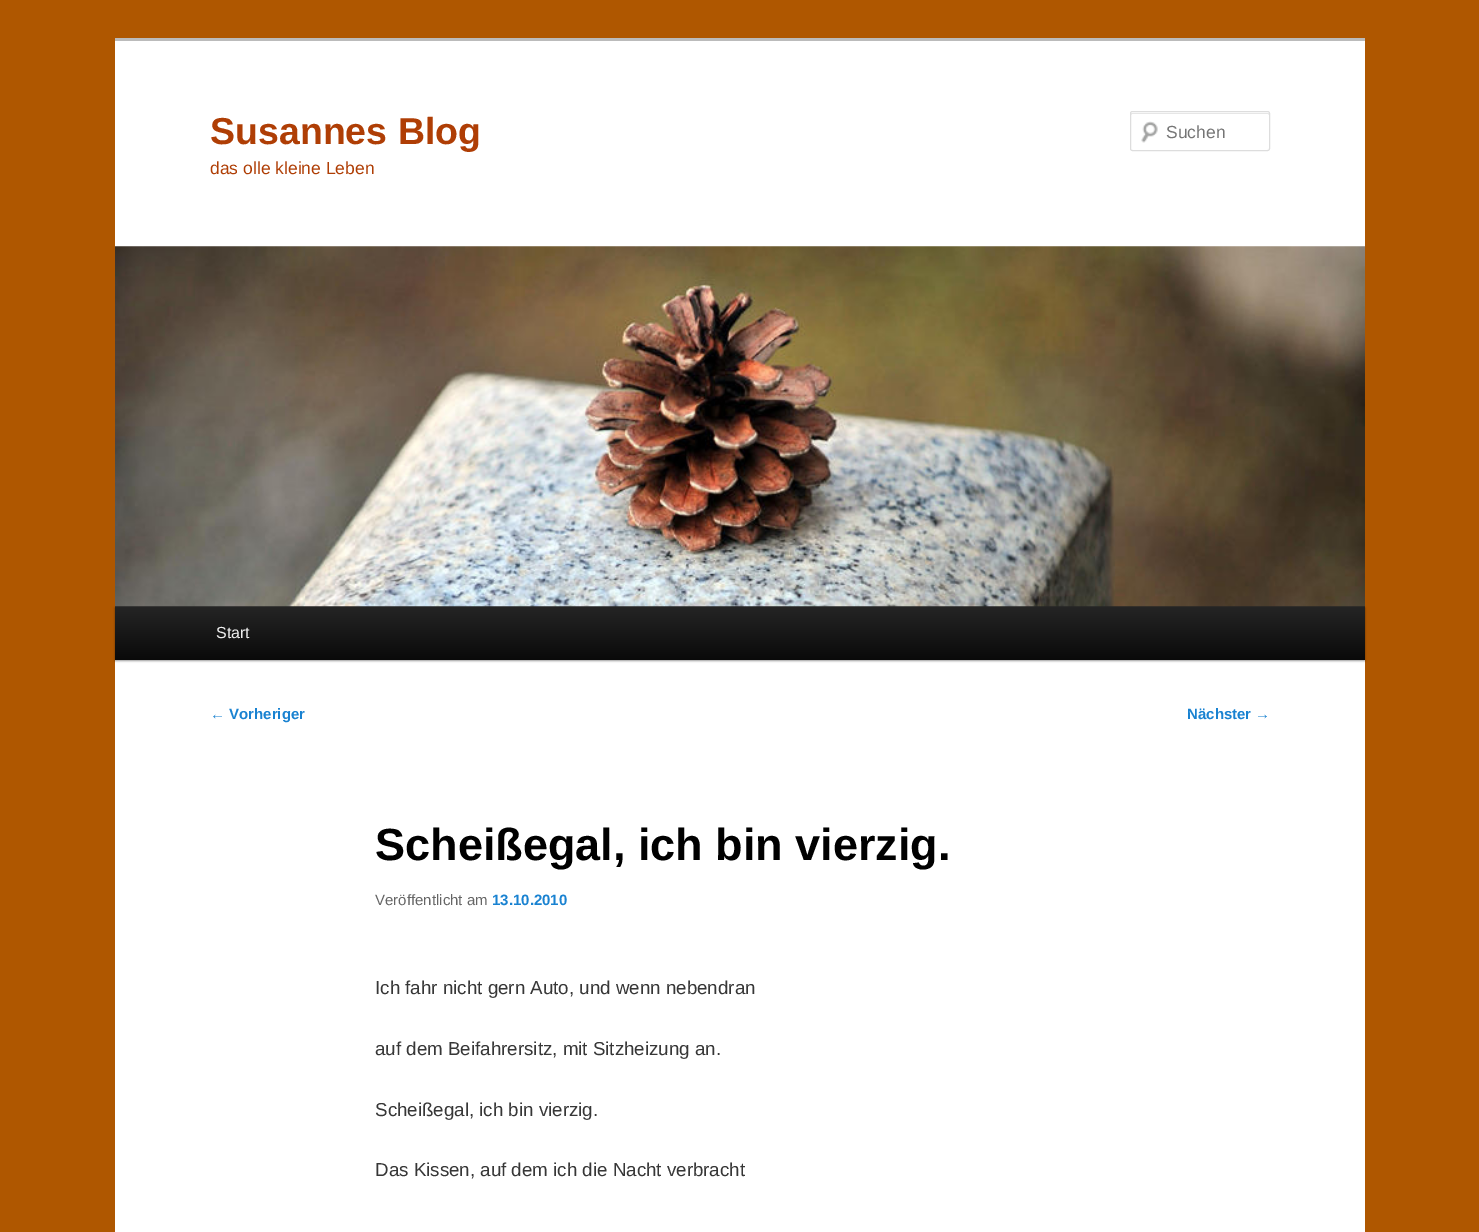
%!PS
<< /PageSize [1479 1232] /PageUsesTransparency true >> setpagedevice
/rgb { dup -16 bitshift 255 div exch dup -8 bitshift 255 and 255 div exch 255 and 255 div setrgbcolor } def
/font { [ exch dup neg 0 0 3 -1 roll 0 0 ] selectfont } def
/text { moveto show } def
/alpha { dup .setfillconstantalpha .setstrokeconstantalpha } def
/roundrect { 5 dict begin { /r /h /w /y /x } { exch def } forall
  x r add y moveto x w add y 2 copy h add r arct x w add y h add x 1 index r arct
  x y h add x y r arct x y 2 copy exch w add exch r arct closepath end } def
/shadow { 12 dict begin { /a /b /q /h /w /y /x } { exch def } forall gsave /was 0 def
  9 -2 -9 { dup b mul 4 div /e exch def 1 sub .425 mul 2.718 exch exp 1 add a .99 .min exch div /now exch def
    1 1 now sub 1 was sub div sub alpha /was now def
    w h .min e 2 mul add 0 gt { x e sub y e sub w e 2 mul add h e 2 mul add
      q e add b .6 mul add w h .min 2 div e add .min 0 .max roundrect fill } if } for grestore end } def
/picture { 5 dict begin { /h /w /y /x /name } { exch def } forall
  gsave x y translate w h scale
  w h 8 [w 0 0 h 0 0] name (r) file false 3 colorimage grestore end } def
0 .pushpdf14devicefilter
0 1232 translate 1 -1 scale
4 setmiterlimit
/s1 { /LiberationSans-Bold 37.5 font 16#AF3E05 rgb } def
/s2 { /LiberationSans-Regular 17.5 font 16#AF3E05 rgb } def
/s3 { /LiberationSans-Regular 17.5 font 16#757575 rgb } def
/s4 { /LiberationSans-Regular 16 font 16#EEEEEE rgb } def
/s5 { /LiberationSans-Regular 15 font 16#1982D1 rgb } def
/s6 { /LiberationSans-Bold 15 font 16#1982D1 rgb } def
/s7 { /LiberationSans-Bold 45 font 16#000000 rgb } def
/s8 { /LiberationSans-Regular 15 font 16#666666 rgb } def
/s9 { /LiberationSans-Regular 18.75 font 16#373737 rgb } def
16#AF5700 rgb
0 0 1479 1232 rectfill
16#FFFFFF rgb
115 41 1250 1191 rectfill
16#BBBBBB rgb
115 38 1250 3 rectfill
s1
(Susannes Blog) 210 144 text
s2
(das olle kleine Leben) 210 174 text
(pic1.raw) 1141 121 17 22 picture
16#E6E6E6 rgb
1132 114 moveto 1268 114 lineto 1269 115 lineto 1269 114 1269 113 1268 113 curveto 1132 113 lineto 1131 113 1131 114 1131 115 curveto closepath fill
16#DDDDDD rgb
1130.5 111.5 139 39 2 roundrect stroke
s3
(Suchen) 1166 138 text
16#000000 rgb
115 608 1250 53 0 1 0.4 shadow
gsave 115 606 moveto 1365 606 lineto 1365 660 lineto 115 660 lineto closepath clip newpath
<< /ShadingType 2 /ColorSpace /DeviceRGB /Coords [740 606 740 660] /Extend [true true] /Function << /FunctionType 2 /Domain [0 1] /C0 [0.145 0.145 0.145] /C1 [0.039 0.039 0.039] /N 1 >> >> shfill grestore
(pic2.raw) 115 246 1250 361 picture
s4
(Start) 216 638 text
s5
(←) 210 719 text
s6
(Vorheriger) 229 719 text
(Nächster) 1187 719 text
s5
(→) 1255 719 text
s7
(Scheißegal, ich bin vierzig.) 375 860 text
s8
(Veröffentlicht am) 375 905 text
s6
(13.10.2010) 492 905 text
s9
(Ich fahr nicht gern Auto, und wenn nebendran) 375 994 text
(auf dem Beifahrersitz, mit Sitzheizung an.) 375 1055 text
(Scheißegal, ich bin vierzig.) 375 1116 text
(Das Kissen, auf dem ich die Nacht verbracht) 375 1176 text
.poppdf14devicefilter showpage
